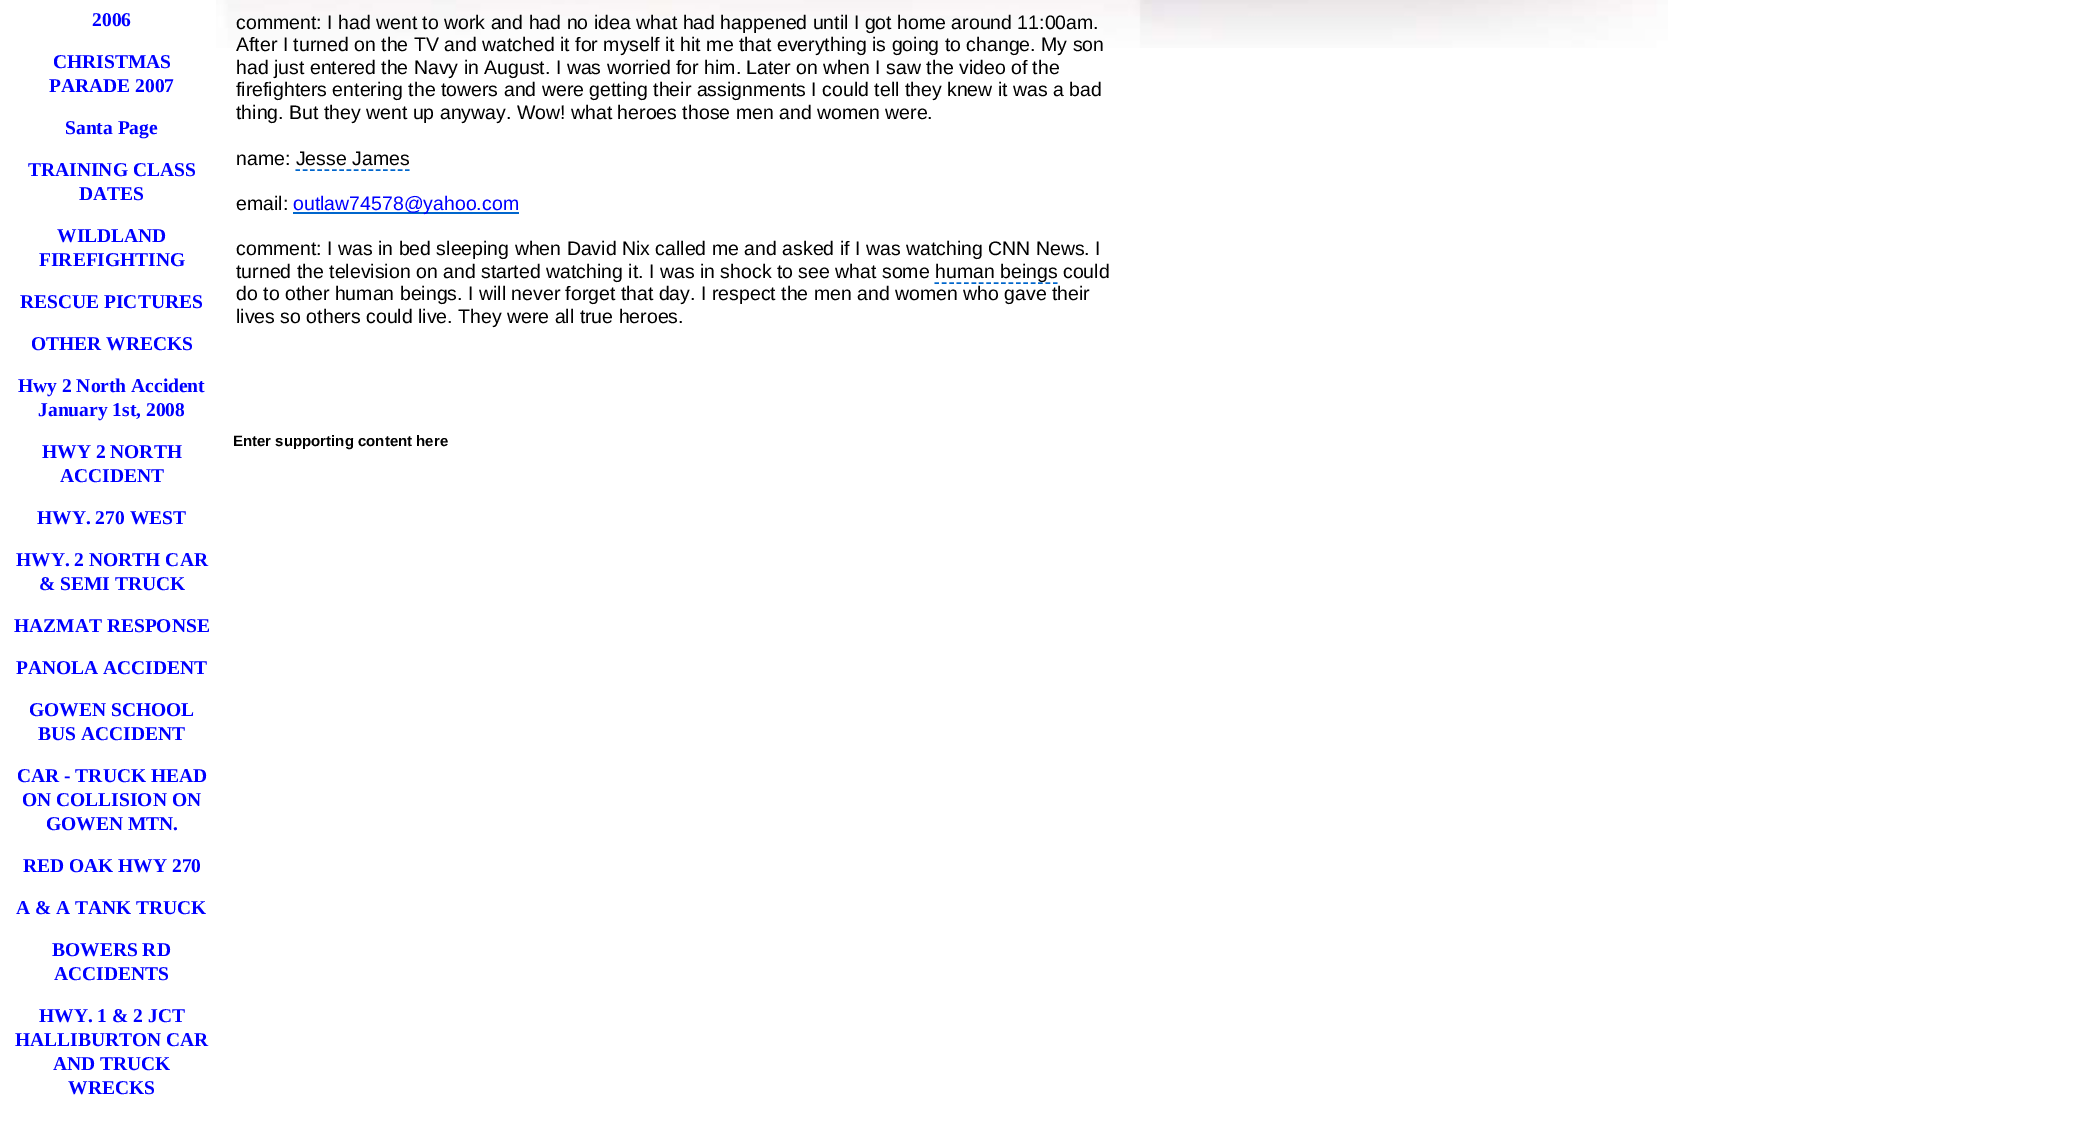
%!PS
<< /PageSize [2077 1129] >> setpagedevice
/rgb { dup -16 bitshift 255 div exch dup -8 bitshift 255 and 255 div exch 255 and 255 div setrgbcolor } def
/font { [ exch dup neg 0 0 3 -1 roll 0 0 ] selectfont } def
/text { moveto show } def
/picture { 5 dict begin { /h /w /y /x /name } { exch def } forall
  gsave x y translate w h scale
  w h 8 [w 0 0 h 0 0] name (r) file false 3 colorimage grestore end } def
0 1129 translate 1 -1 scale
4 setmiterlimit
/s1 { /LiberationSerif-Bold 19.5 font 16#0000FF rgb } def
/s2 { /LiberationSans-Regular 19.5 font 16#000000 rgb } def
/s3 { /LiberationSans-Regular 19.5 font 16#0000FF rgb } def
/s4 { /LiberationSans-Bold 15 font 16#000000 rgb } def
16#FFFFFF rgb
0 0 2077 1129 rectfill
(pic1.raw) 216 0 1452 48 picture
s1
(2006) 92 26 text
(CHRISTMAS) 53 68 text
(PARADE 2007) 49 92 text
(Santa Page) 65 134 text
(TRAINING CLASS) 28 176 text
(DATES) 79 200 text
(WILDLAND) 57 242 text
(FIREFIGHTING) 39 266 text
(RESCUE PICTURES) 20 308 text
(OTHER WRECKS) 31 350 text
(Hwy 2 North Accident) 18 392 text
(January 1st, 2008) 38 416 text
(HWY 2 NORTH) 42 458 text
(ACCIDENT) 60 482 text
(HWY. 270 WEST) 37 524 text
(HWY. 2 NORTH CAR) 16 566 text
(& SEMI TRUCK) 39 590 text
(HAZMAT RESPONSE) 14 632 text
(PANOLA ACCIDENT) 16 674 text
(GOWEN SCHOOL) 29 716 text
(BUS ACCIDENT) 38 740 text
(CAR - TRUCK HEAD) 17 782 text
(ON COLLISION ON) 22 806 text
(GOWEN MTN.) 46 830 text
(RED OAK HWY 270) 23 872 text
(A & A TANK TRUCK) 16 914 text
(BOWERS RD) 52 956 text
(ACCIDENTS) 54 980 text
(HWY. 1 & 2 JCT) 39 1022 text
(HALLIBURTON CAR) 15 1046 text
(AND TRUCK) 53 1070 text
(WRECKS) 68 1094 text
s2
(comment: I had went to work and had no idea what had happened until I got home around 11:00am.) 236 29 text
(After I turned on the TV and watched it for myself it hit me that everything is going to change. My son) 236 51 text
(had just entered the Navy in August. I was worried for him. Later on when I saw the video of the) 236 74 text
(firefighters entering the towers and were getting their assignments I could tell they knew it was a bad) 236 96 text
(thing. But they went up anyway. Wow! what heroes those men and women were.) 236 119 text
(name: Jesse James) 236 165 text
16#0066CC rgb
1.5 setlinewidth
[4.5 2.81] 0 setdash
295.5 170 moveto 409.5 170 lineto stroke
s2
(email:) 236 210 text
16#0066CC rgb
293 212 226 2 rectfill
s3
(outlaw74578@yahoo.com) 293 210 text
s2
(comment: I was in bed sleeping when David Nix called me and asked if I was watching CNN News. I) 236 255 text
(turned the television on and started watching it. I was in shock to see what some) 236 278 text
16#0066CC rgb
[4.5 2.91] 0 setdash
934.5 283 moveto 1057.5 283 lineto stroke
s2
(human beings could) 935 278 text
(do to other human beings. I will never forget that day. I respect the men and women who gave their) 236 300 text
(lives so others could live. They were all true heroes.) 236 323 text
s4
(Enter supporting content here) 233 446 text
showpage
